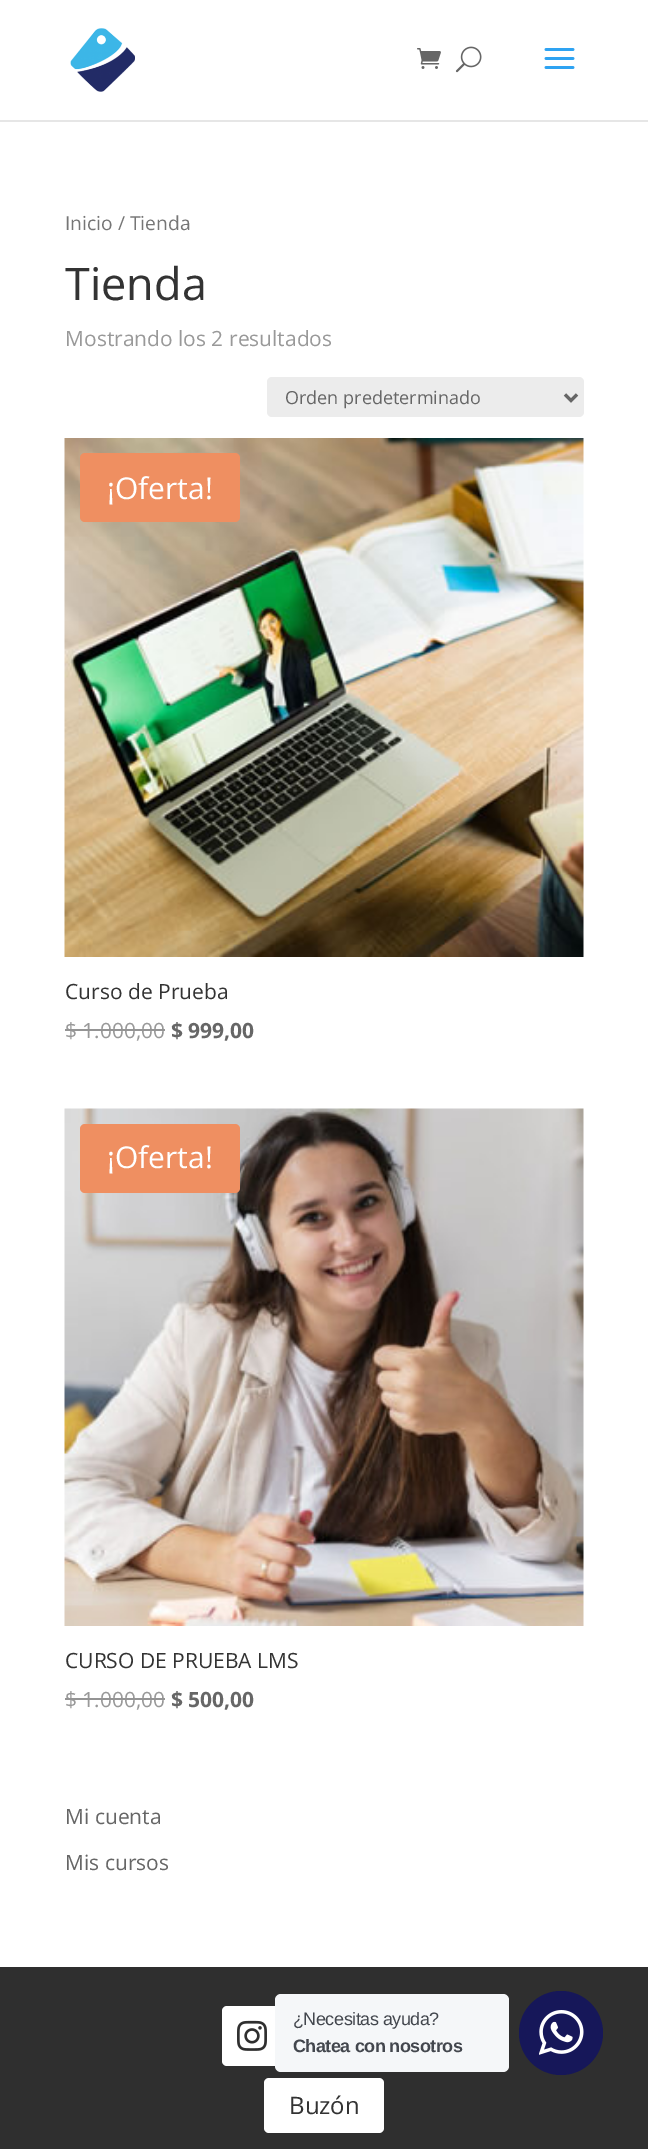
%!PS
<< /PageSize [648 2149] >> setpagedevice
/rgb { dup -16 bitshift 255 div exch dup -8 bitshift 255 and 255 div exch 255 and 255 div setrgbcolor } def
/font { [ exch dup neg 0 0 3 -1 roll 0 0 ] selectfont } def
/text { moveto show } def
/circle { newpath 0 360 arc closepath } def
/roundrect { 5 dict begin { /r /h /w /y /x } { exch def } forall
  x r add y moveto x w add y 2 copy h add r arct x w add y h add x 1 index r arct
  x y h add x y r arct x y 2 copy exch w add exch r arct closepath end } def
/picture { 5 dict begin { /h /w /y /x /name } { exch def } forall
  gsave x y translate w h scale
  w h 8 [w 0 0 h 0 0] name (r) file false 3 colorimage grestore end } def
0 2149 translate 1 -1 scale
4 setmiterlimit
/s1 { /OpenSans-Regular 19.25 font 16#767676 rgb } def
/s2 { /OpenSans-Regular 45 font 16#333333 rgb } def
/s3 { /OpenSans-Regular 21 font 16#999999 rgb } def
/s4 { /OpenSans-Regular 18 font 16#666666 rgb } def
/s5 { /OpenSans-Regular 30 font 16#FFFFFF rgb } def
/s6 { /OpenSans-Regular 21 font 16#333333 rgb } def
/s7 { /OpenSans-Bold 21 font 16#666666 rgb } def
/s8 { /OpenSans-Regular 21 font 16#666666 rgb } def
/s9 { /OpenSans-Regular 24 font 16#333333 rgb } def
16#FFFFFF rgb
0 0 648 2149 rectfill
16#E6E6E6 rgb
0 120 648 2 rectfill
(pic1.raw) 70 28 65 64 picture
(pic2.raw) 417 48 24 21 picture
(pic3.raw) 455 46 27 27 picture
(pic4.raw) 544 48 31 21 picture
s1
(Inicio / Tienda) 65 230 text
s2
(Tienda) 65 300 text
s3
(Mostrando los 2 resultados) 65 346 text
16#ECECEC rgb
267 377 317 40 5 roundrect fill
16#666666 rgb
3 setlinewidth
565 394.5 moveto 571 400.5 lineto 577 394.5 lineto stroke
s4
(Orden predeterminado) 285 404 text
(pic5.raw) 64 438 520 519 picture
16#EF8F61 rgb
80 453 160 69 5 roundrect fill
s5
(¡Oferta!) 107 499 text
s6
(Curso de Prueba) 65 999 text
s3
($ 1.000,00) 65 1038 text
16#949494 rgb
65 1029 100 2 rectfill
s7
($ 999,00) 171 1038 text
(pic6.raw) 64 1108 520 518 picture
16#EF8F61 rgb
80 1124 160 69 5 roundrect fill
s5
(¡Oferta!) 107 1168 text
s6
(CURSO DE PRUEBA LMS) 65 1668 text
s3
($ 1.000,00) 65 1707 text
16#949494 rgb
65 1698 100 2 rectfill
s7
($ 500,00) 171 1707 text
s8
(Mi cuenta) 65 1824 text
(Mis cursos) 65 1870 text
16#2F2F2F rgb
0 1967 648 182 rectfill
16#FFFFFF rgb
222 2006 60 60 5 roundrect fill
(pic7.raw) 237 2020 30 31 picture
264 2078 120 55 5 roundrect fill
s9
(Buzón) 289 2114 text
16#F5F7F9 rgb
275 1994 234 78 6 roundrect fill
/LiberationSans-Regular 18 font
16#43474E rgb
293 2025 moveto -0.5 0 (¿Necesitas ayuda?) ashow
/LiberationSans-Bold 18 font
293 2052 moveto -0.5 0 (Chatea con nosotros) ashow
16#161759 rgb
561 2033 42 circle fill
(pic8.raw) 539 2010 45 45 picture
showpage
